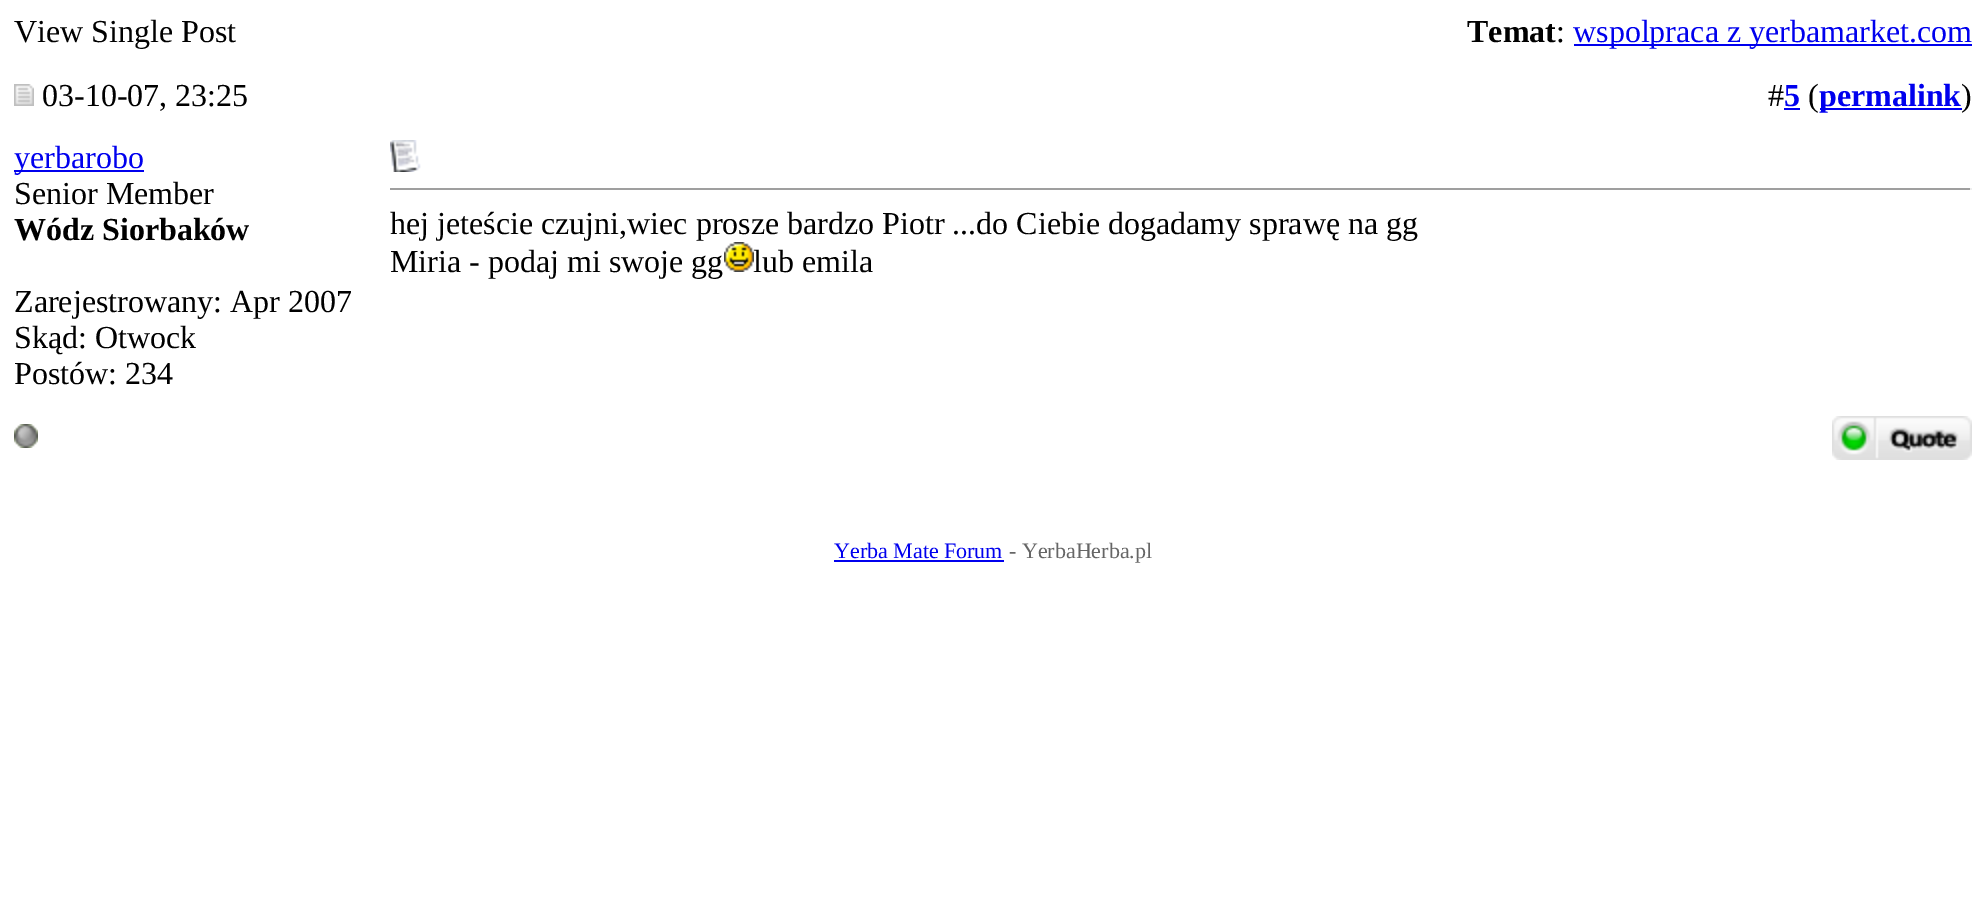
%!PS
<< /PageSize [1986 897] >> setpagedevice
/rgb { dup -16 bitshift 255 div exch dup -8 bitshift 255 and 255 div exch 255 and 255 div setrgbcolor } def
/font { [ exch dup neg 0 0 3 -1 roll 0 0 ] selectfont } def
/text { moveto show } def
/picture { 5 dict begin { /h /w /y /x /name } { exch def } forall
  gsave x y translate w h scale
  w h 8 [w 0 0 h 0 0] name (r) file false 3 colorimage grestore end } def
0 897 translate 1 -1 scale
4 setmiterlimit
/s1 { /LiberationSerif-Regular 32 font 16#000000 rgb } def
/s2 { /LiberationSerif-Bold 32 font 16#000000 rgb } def
/s3 { /LiberationSerif-Regular 32 font 16#0000EE rgb } def
/s4 { /LiberationSerif-Bold 32 font 16#0000EE rgb } def
/s5 { /LiberationSerif-Regular 22 font 16#0000EE rgb } def
/s6 { /LiberationSerif-Regular 22 font 16#666666 rgb } def
16#FFFFFF rgb
0 0 1986 897 rectfill
s1
(View Single Post) 14 42 text
s2
(Temat) 1467 42 text
s1
(:) 1556 42 text
16#0000EE rgb
1574 44 398 2 rectfill
(wspolpraca z yerbamarket.com) 1573 42 text
(pic1.raw) 14 84 20 22 picture
s1
(03-10-07, 23:25) 42 106 text
(#) 1768 106 text
s4
(5) 1784 106 text
1784 108 16 2 rectfill
s1
(\() 1808 106 text
16#0000EE rgb
1820 108 142 2 rectfill
s4
(permalink) 1819 106 text
s1
(\)) 1961 106 text
16#0000EE rgb
14 170 130 2 rectfill
(yerbarobo) 14 168 text
s1
(Senior Member) 14 204 text
s2
(Wódz Siorbaków) 14 240 text
s1
(Zarejestrowany: Apr 2007) 14 312 text
(Skąd: Otwock) 14 348 text
(Postów: 234) 14 384 text
(pic2.raw) 390 140 31 32 picture
16#9F9F9F rgb
390 188 1582 2 rectfill
16#EEEEEE rgb
1970 188 2 2 rectfill
s1
(hej jeteście czujni,wiec prosze bardzo Piotr ...do Ciebie dogadamy sprawę na gg) 390 234 text
(Miria - podaj mi swoje gg) 390 272 text
(pic3.raw) 724 242 30 30 picture
(lub emila) 753 272 text
(pic4.raw) 14 424 24 24 picture
(pic5.raw) 1832 416 140 44 picture
s5
(Yerba Mate Forum) 834 558 text
834 560 170 2 rectfill
s6
(- YerbaHerba.pl) 1009 558 text
showpage
